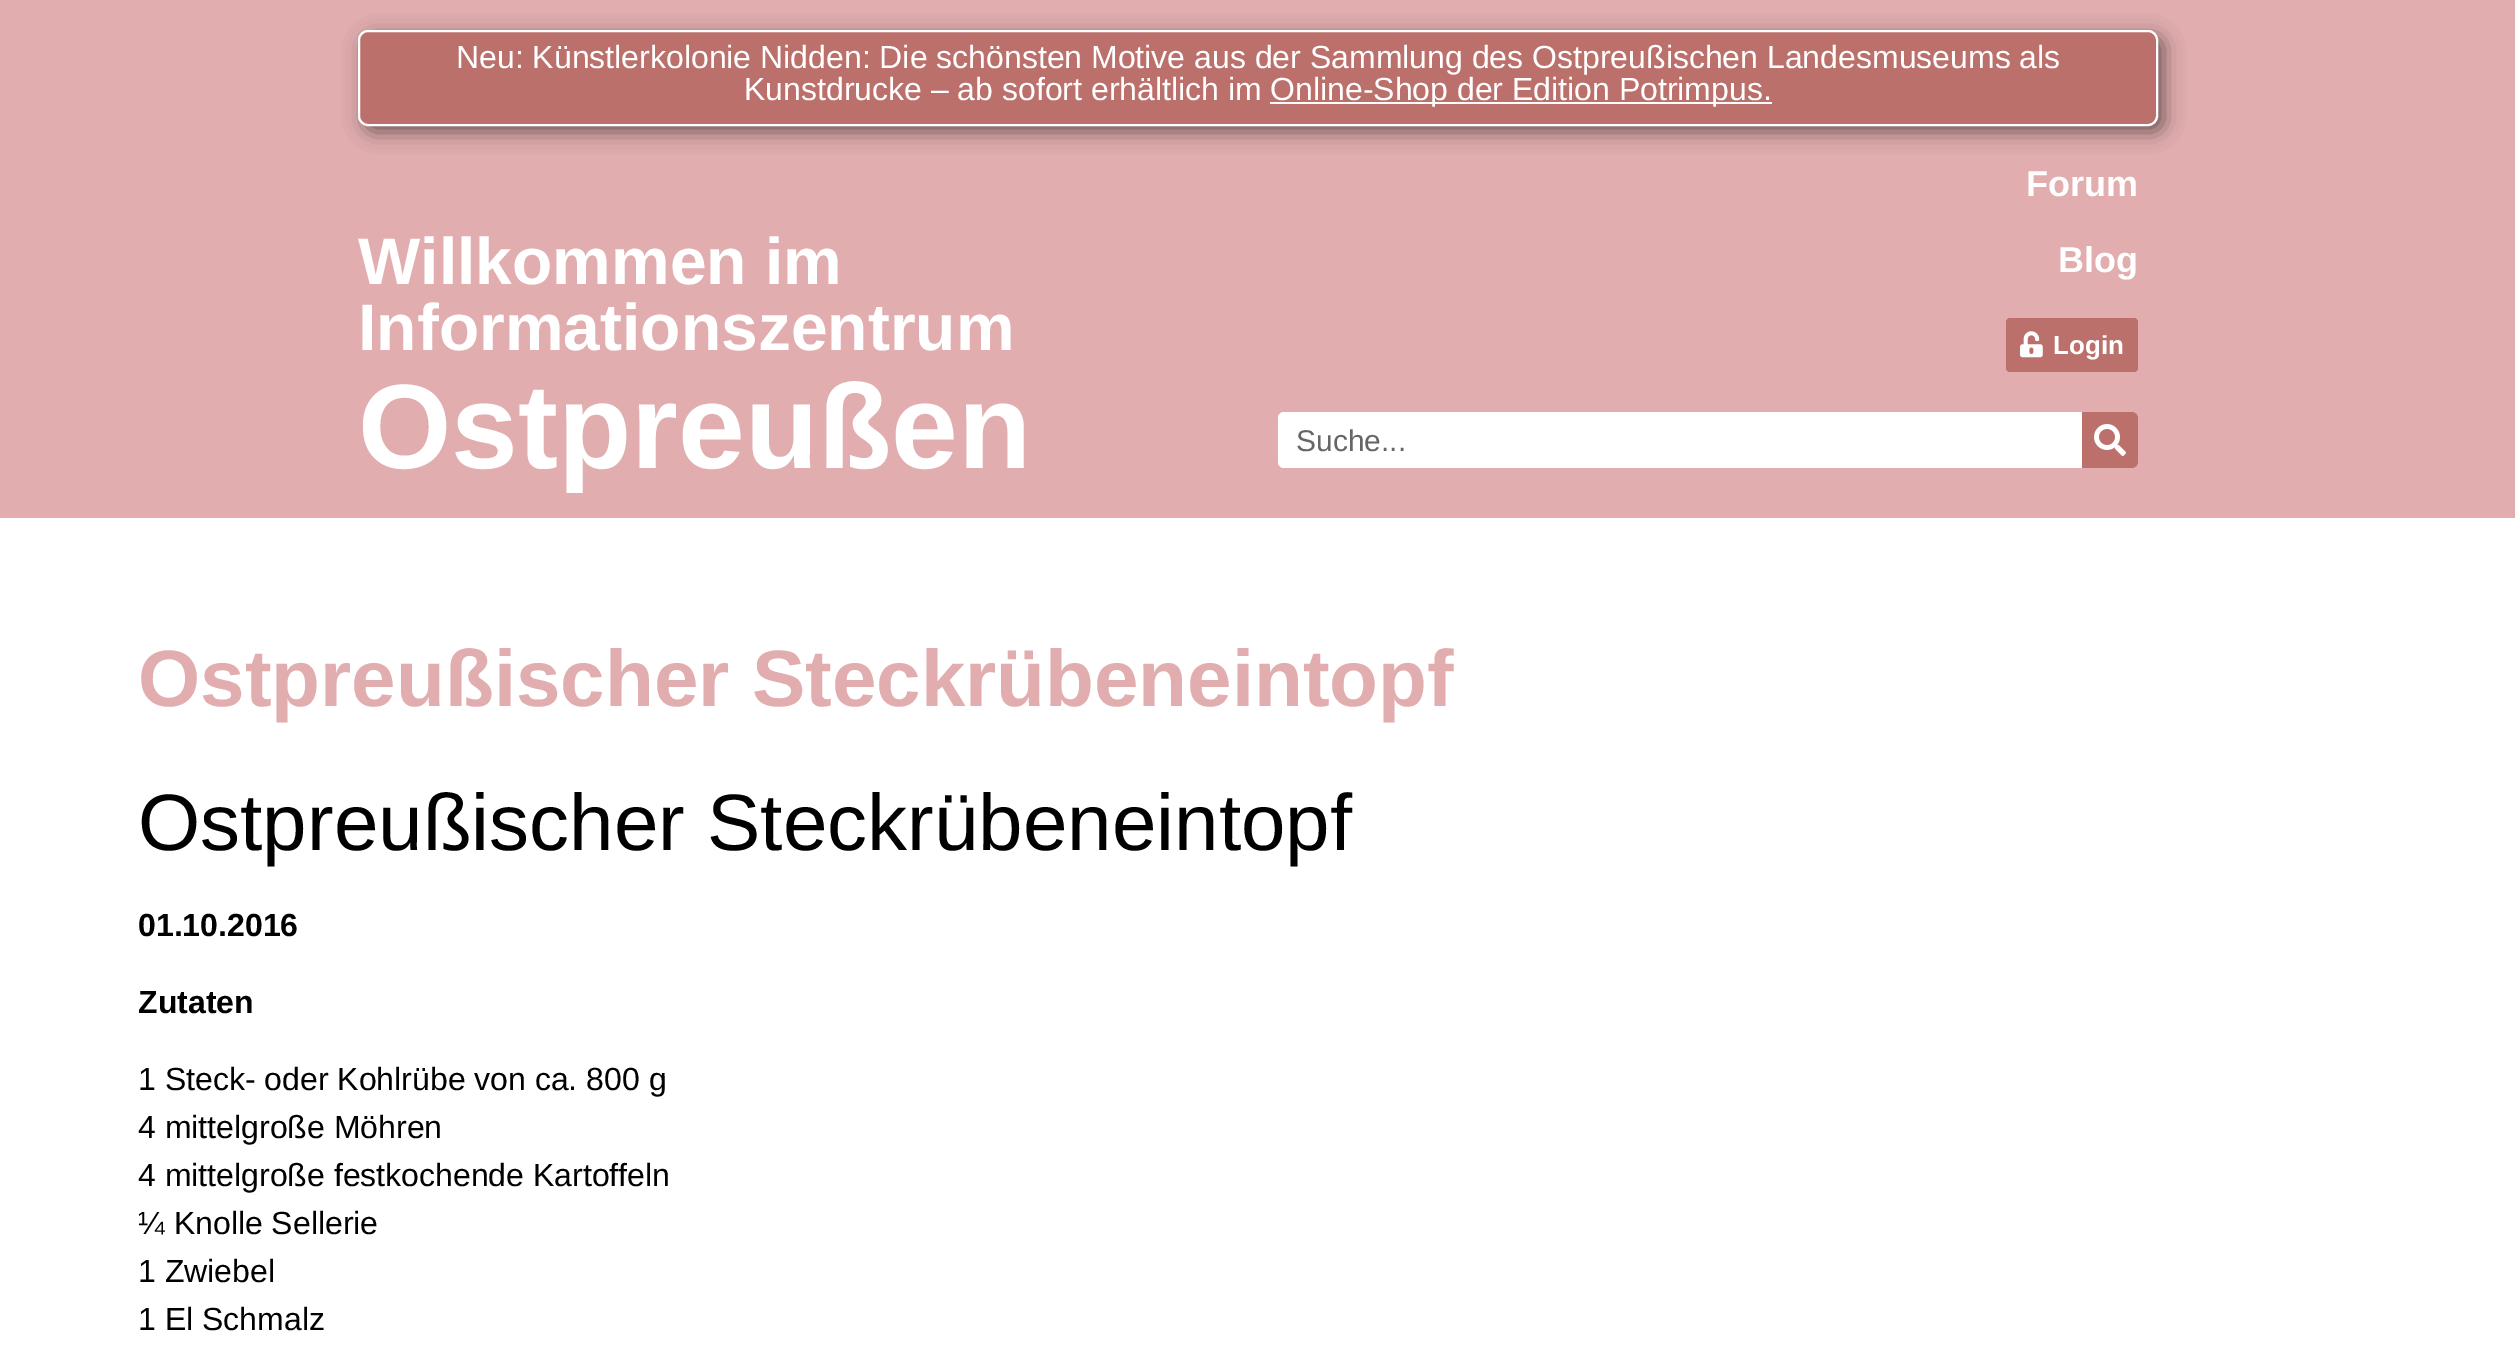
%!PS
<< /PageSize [2515 1348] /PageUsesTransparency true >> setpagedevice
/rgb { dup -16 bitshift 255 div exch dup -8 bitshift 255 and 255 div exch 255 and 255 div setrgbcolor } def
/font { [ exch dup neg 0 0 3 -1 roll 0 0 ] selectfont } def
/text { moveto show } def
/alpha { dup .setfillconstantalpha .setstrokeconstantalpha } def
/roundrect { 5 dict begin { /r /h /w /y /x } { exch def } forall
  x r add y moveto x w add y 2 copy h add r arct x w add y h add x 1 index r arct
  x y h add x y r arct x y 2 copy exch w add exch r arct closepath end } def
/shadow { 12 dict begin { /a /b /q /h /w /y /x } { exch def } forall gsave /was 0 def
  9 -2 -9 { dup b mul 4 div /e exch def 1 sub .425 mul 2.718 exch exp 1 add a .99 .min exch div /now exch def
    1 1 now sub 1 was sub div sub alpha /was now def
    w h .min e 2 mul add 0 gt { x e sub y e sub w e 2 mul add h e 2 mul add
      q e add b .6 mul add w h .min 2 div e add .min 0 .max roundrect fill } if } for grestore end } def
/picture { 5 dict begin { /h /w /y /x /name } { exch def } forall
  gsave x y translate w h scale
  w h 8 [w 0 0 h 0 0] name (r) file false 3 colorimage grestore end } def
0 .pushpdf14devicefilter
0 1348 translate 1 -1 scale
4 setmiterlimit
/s1 { /LiberationSans-Regular 32 font 16#FFFFFF rgb } def
/s2 { /LiberationSans-Bold 66 font 16#FFFFFF rgb } def
/s3 { /LiberationSans-Bold 120 font 16#FFFFFF rgb } def
/s4 { /LiberationSans-Bold 36 font 16#FFFFFF rgb } def
/s5 { /LiberationSans-Bold 26 font 16#FFFFFF rgb } def
/s6 { /LiberationSans-Regular 30 font 16#666666 rgb } def
/s7 { /LiberationSans-Bold 80 font 16#E1ADAF rgb } def
/s8 { /LiberationSans-Regular 80 font 16#000000 rgb } def
/s9 { /LiberationSans-Bold 32 font 16#000000 rgb } def
/s10 { /LiberationSans-Regular 32 font 16#000000 rgb } def
16#FFFFFF rgb
0 0 2515 1348 rectfill
16#E1ADAF rgb
0 0 2515 518 rectfill
16#000000 rgb
364 36 1800 96 10 10 0.5 shadow
16#BC706C rgb
359 31 1798 94 9 roundrect gsave fill grestore
16#FFFFFF rgb
2 setlinewidth
stroke
s1
(Neu: Künstlerkolonie Nidden: Die schönsten Motive aus der Sammlung des Ostpreußischen Landesmuseums als) 456 68 text
(Kunstdrucke – ab sofort erhältlich im) 744 100 text
1270 102 502 2 rectfill
(Online-Shop der Edition Potrimpus.) 1270 100 text
s2
(Willkommen im) 358 284 text
(Informationszentrum) 358 350 text
s3
(Ostpreußen) 358 468 text
s4
(Forum) 2026 196 text
(Blog) 2058 272 text
16#BC706C rgb
2006 318 132 54 4 roundrect fill
(pic1.raw) 2020 331 23 27 picture
s5
(Login) 2053 354 text
1278 412 860 56 6 roundrect fill
s6
(Suche...) 1296 451 text
16#BC706C rgb
2082 412 moveto 2132 412 lineto 2135.5 412 2138 414.5 2138 418 curveto 2138 462 lineto 2138 465.5 2135.5 468 2132 468 curveto 2082 468 lineto closepath fill
(pic2.raw) 2094 424 32 32 picture
s7
(Ostpreußischer Steckrübeneintopf) 138 706 text
s8
(Ostpreußischer Steckrübeneintopf) 138 850 text
s9
(01.10.2016) 138 936 text
(Zutaten) 138 1013 text
s10
(1 Steck- oder Kohlrübe von ca. 800 g) 138 1090 text
(4 mittelgroße Möhren) 138 1138 text
(4 mittelgroße festkochende Kartoffeln) 138 1186 text
(¼ Knolle Sellerie) 138 1234 text
(1 Zwiebel) 138 1282 text
(1 El Schmalz) 138 1330 text
.poppdf14devicefilter showpage
